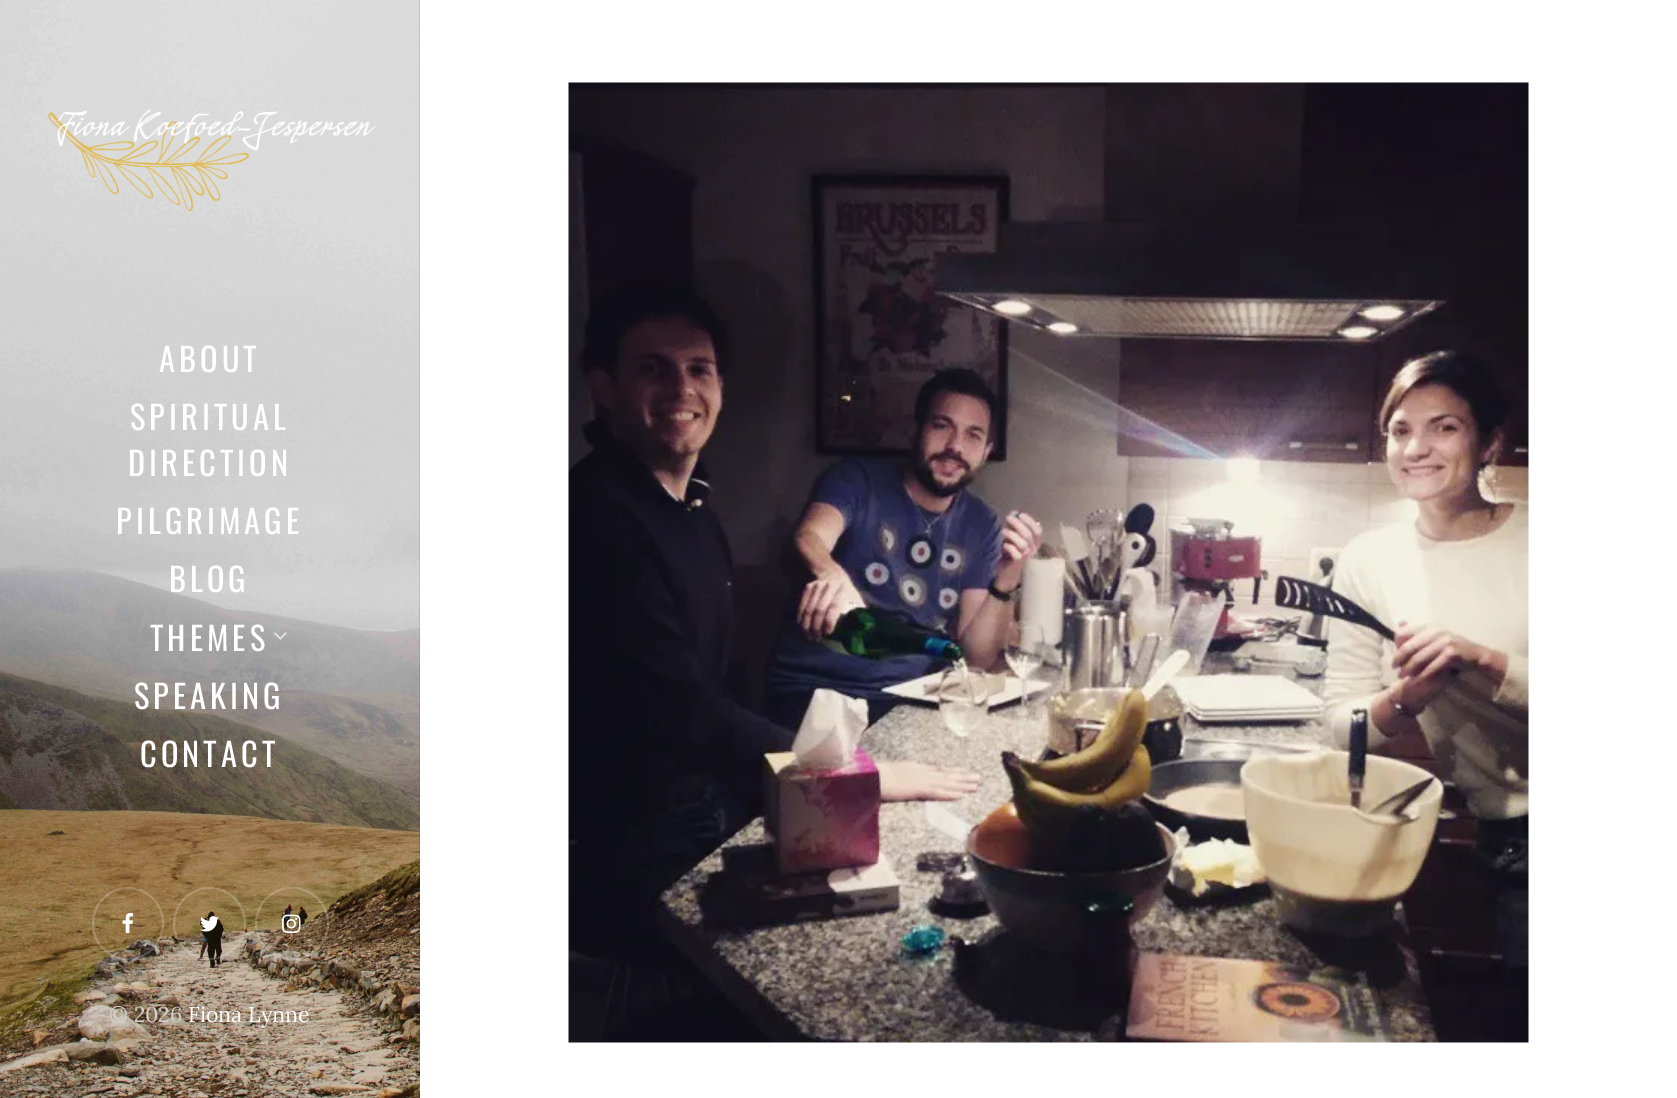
%!PS
<< /PageSize [1677 1098] /PageUsesTransparency true >> setpagedevice
/rgb { dup -16 bitshift 255 div exch dup -8 bitshift 255 and 255 div exch 255 and 255 div setrgbcolor } def
/font { [ exch dup neg 0 0 3 -1 roll 0 0 ] selectfont } def
/text { moveto show } def
/alpha { dup .setfillconstantalpha .setstrokeconstantalpha } def
/circle { newpath 0 360 arc closepath } def
/roundrect { 5 dict begin { /r /h /w /y /x } { exch def } forall
  x r add y moveto x w add y 2 copy h add r arct x w add y h add x 1 index r arct
  x y h add x y r arct x y 2 copy exch w add exch r arct closepath end } def
/picture { 5 dict begin { /h /w /y /x /name } { exch def } forall
  gsave x y translate w h scale
  w h 8 [w 0 0 h 0 0] name (r) file false 3 colorimage grestore end } def
0 .pushpdf14devicefilter
0 1098 translate 1 -1 scale
4 setmiterlimit
/s1 { /Lora-Regular 21.5 font 16#D0D0D0 rgb } def
/s2 { /Lora-Regular 21.5 font 16#FFFFFF rgb } def
16#FFFFFF rgb
0 0 1677 1098 rectfill
(pic1.raw) 0 0 420 1098 picture
(pic2.raw) 48 109 328 103 picture
/Oswald-Regular 32.5 font
159 372 moveto 4 0 (ABOUT) ashow
130 430 moveto 4 0 (SPIRITUAL) ashow
128 476 moveto 4 0 (DIRECTION) ashow
116 534 moveto 4 0 (PILGRIMAGE) ashow
169 592 moveto 4 0 (BLOG) ashow
150 651 moveto 4 0 (THEMES) ashow
(pic3.raw) 274 632 13 8 picture
134 709 moveto 4 0 (SPEAKING) ashow
140 767 moveto 4 0 (CONTACT) ashow
0.2 alpha
2 setlinewidth
93 888 70 71 35 roundrect stroke
1 alpha
(pic4.raw) 122 913 12 21 picture
0.2 alpha
209.5 923.5 35.5 circle stroke
1 alpha
(pic5.raw) 200 916 19 16 picture
0.2 alpha
256 888 72 71 35.5 roundrect stroke
1 alpha
(pic6.raw) 282 914 19 20 picture
s1
(© 2026) 109 1022 text
s2
(Fiona Lynne) 188 1022 text
(pic7.raw) 568 82 961 961 picture
.poppdf14devicefilter showpage
